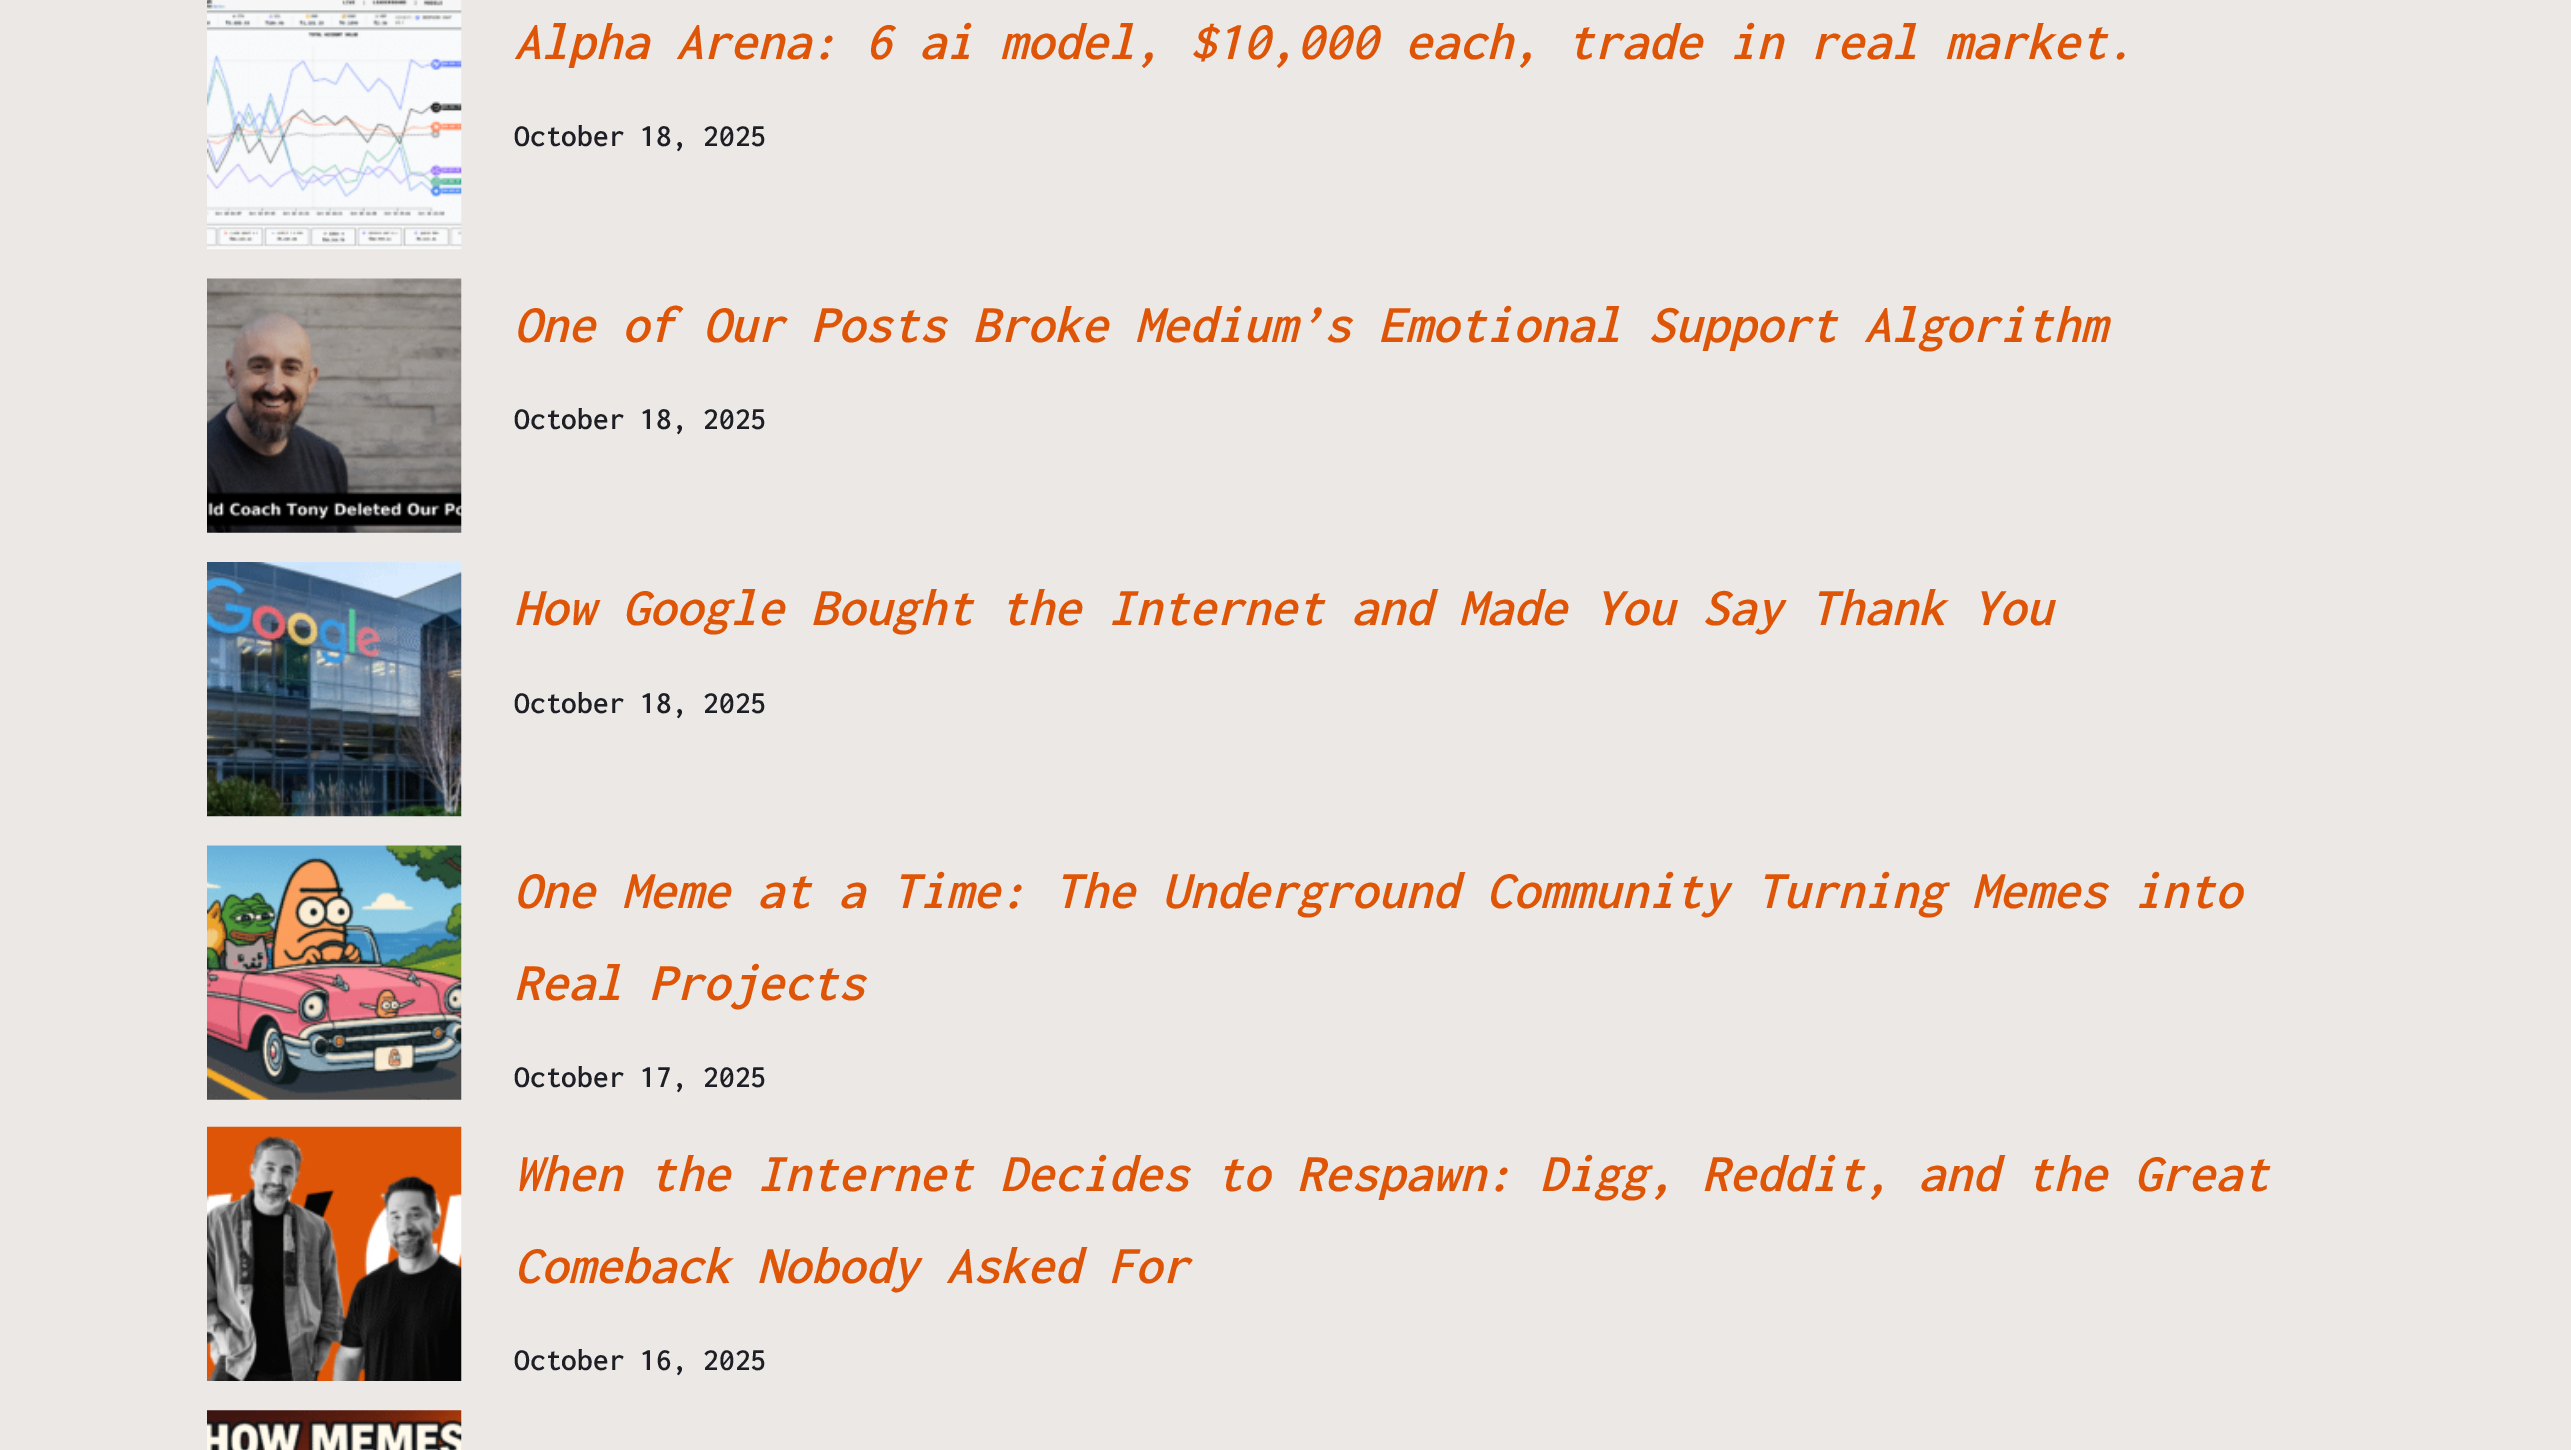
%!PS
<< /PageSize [2571 1450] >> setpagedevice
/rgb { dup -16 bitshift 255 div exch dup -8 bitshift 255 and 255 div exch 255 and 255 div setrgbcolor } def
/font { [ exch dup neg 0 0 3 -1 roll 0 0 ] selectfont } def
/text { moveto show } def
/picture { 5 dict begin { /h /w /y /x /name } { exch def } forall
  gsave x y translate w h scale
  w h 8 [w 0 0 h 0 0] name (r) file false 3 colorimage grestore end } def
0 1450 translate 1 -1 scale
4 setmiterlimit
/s1 { /Inconsolata-SemiBoldItalic 54 font 16#DF5507 rgb } def
/s2 { /Inconsolata-SemiBold 31.5 font 16#1D1F25 rgb } def
16#EBE8E6 rgb
0 0 2571 1450 rectfill
(pic1.raw) 207 0 255 250 picture
s1
(Alpha Arena: 6 ai model, $10,000 each, trade in real market.) 514 59 text
s2
(October 18, 2025) 514 146 text
(pic2.raw) 207 278 255 255 picture
s1
(One of Our Posts Broke Medium’s Emotional Support Algorithm) 514 342 text
s2
(October 18, 2025) 514 429 text
(pic3.raw) 207 562 255 255 picture
s1
(How Google Bought the Internet and Made You Say Thank You) 514 625 text
s2
(October 18, 2025) 514 713 text
(pic4.raw) 207 845 255 255 picture
s1
(One Meme at a Time: The Underground Community Turning Memes into) 514 908 text
(Real Projects) 514 1000 text
s2
(October 17, 2025) 514 1087 text
(pic5.raw) 207 1126 255 255 picture
s1
(When the Internet Decides to Respawn: Digg, Reddit, and the Great) 514 1191 text
(Comeback Nobody Asked For) 514 1283 text
s2
(October 16, 2025) 514 1370 text
(pic6.raw) 207 1410 255 40 picture
showpage
